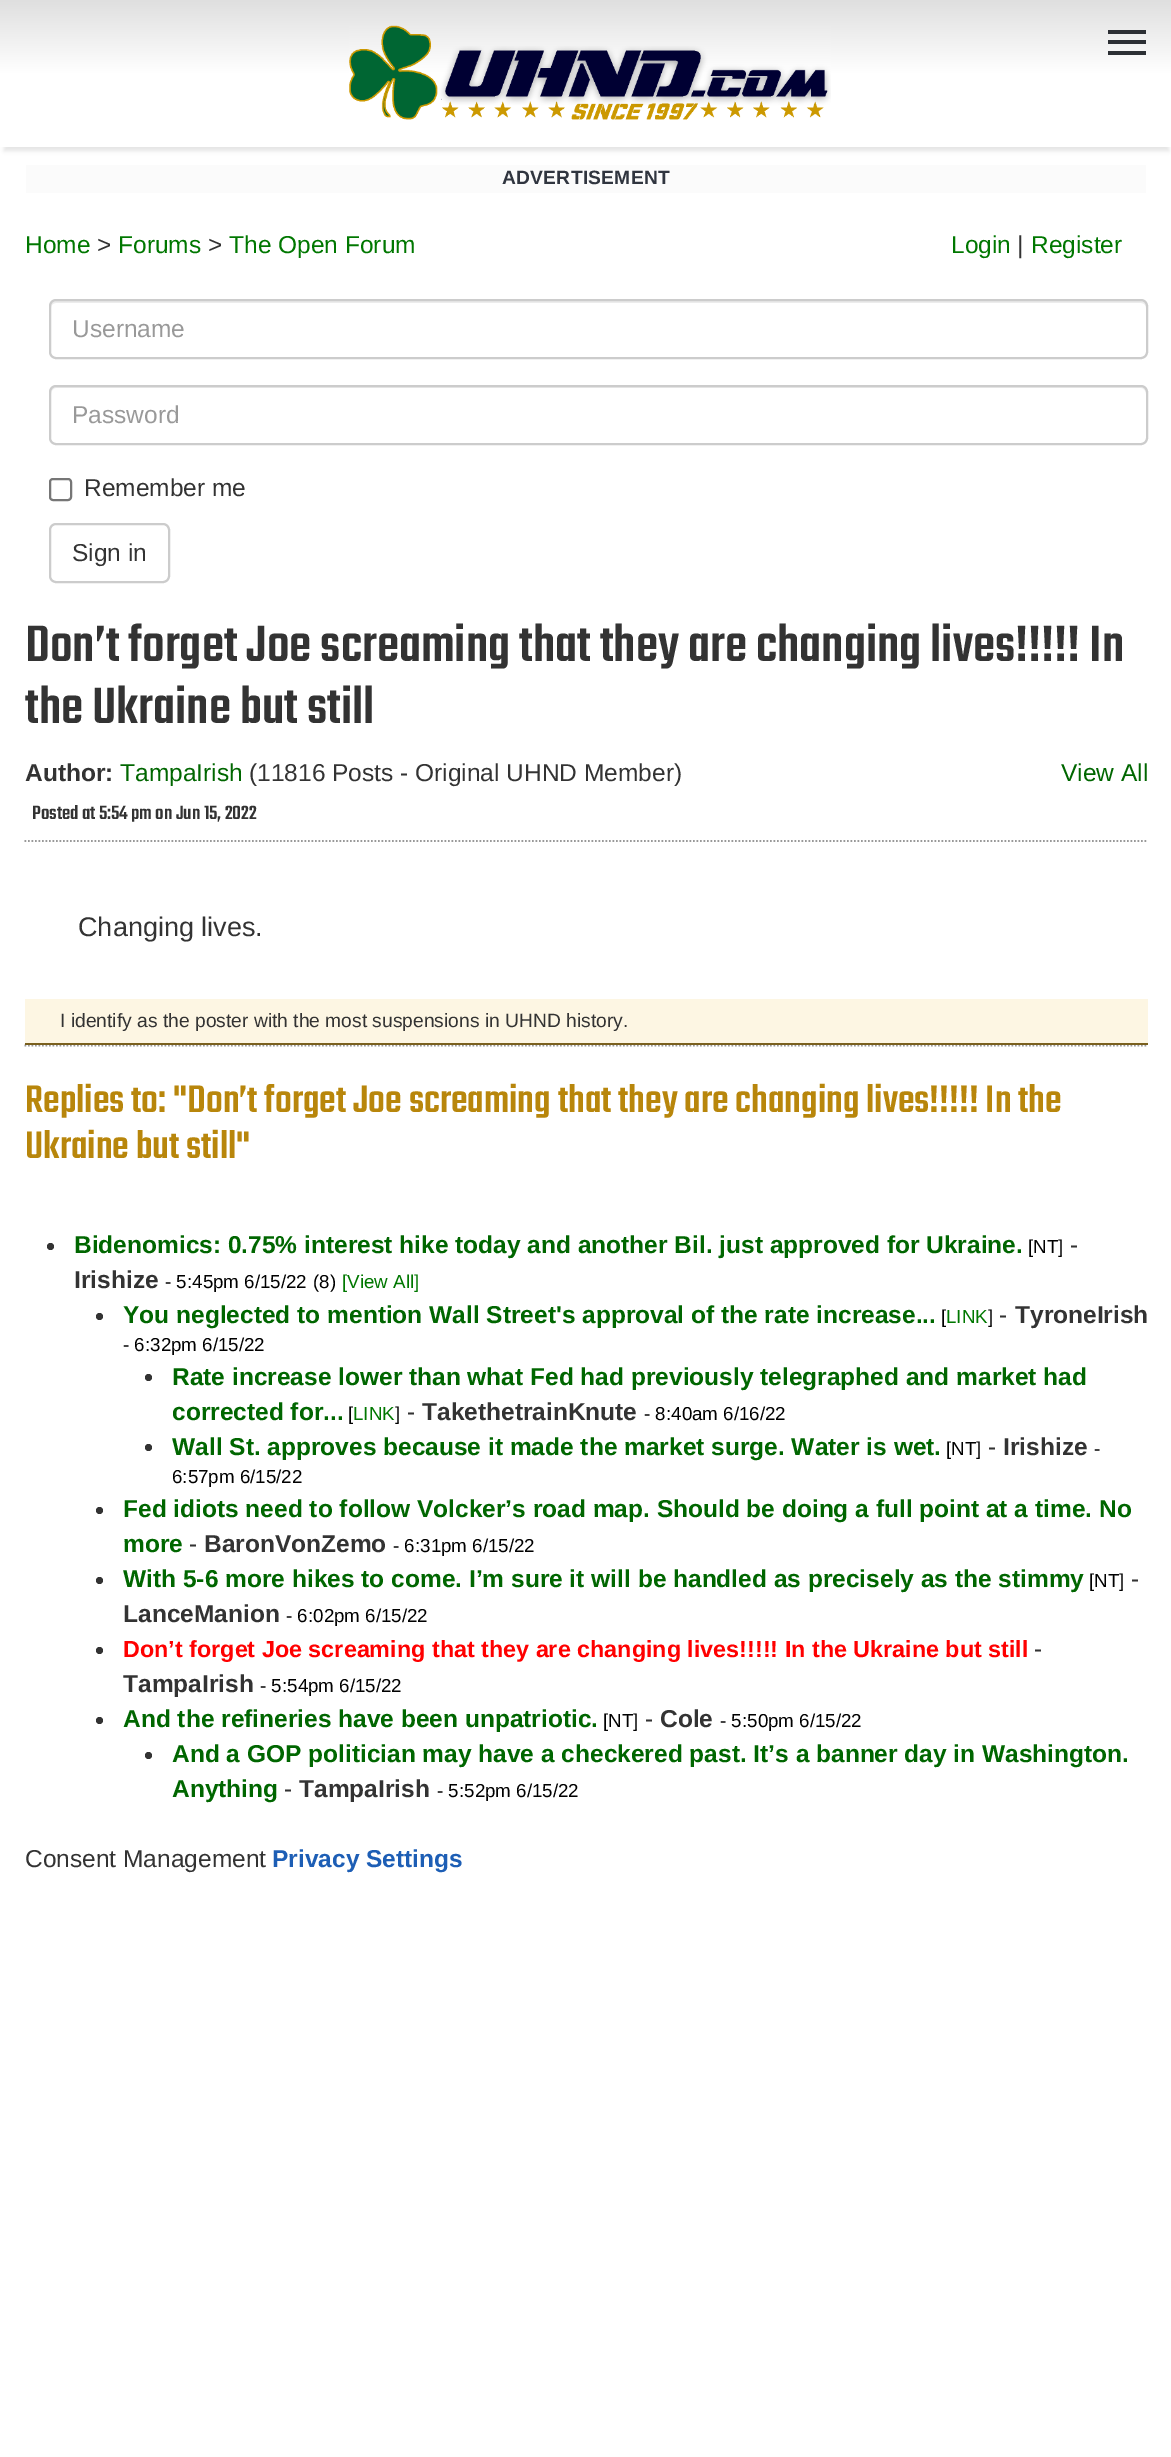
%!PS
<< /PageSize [1171 2457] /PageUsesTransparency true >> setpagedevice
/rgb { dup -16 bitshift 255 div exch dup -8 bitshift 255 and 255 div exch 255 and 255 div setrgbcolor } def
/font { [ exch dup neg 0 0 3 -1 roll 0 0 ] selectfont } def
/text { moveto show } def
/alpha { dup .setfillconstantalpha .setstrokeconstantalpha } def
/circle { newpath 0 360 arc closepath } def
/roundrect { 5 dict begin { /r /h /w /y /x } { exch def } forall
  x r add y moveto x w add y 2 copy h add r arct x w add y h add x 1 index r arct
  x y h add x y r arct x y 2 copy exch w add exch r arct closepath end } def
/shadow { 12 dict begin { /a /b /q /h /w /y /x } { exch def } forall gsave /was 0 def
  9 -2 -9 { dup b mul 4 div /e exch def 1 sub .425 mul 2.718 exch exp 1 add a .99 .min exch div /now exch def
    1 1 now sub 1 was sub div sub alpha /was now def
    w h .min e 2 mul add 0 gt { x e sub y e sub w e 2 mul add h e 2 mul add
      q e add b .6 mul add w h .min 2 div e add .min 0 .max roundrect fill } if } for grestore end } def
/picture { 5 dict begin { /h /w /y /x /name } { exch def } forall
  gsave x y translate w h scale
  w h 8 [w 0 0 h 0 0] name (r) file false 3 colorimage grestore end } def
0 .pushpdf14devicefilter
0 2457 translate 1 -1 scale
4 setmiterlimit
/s1 { /LiberationSans-Regular 24.5 font 16#007700 rgb } def
/s2 { /LiberationSans-Regular 24.5 font 16#333333 rgb } def
/s3 { /LiberationSans-Regular 24.5 font 16#999999 rgb } def
/s4 { /Teko-Medium 56 font 16#333333 rgb } def
/s5 { /LiberationSans-Bold 24.5 font 16#333333 rgb } def
/s6 { /LiberationSans-Regular 24.5 font 16#006600 rgb } def
/s7 { /Teko-Medium 21 font 16#333333 rgb } def
/s8 { /LiberationSans-Regular 27 font 16#333333 rgb } def
/s9 { /LiberationSans-Regular 19.25 font 16#333333 rgb } def
/s10 { /Teko-Medium 42 font 16#B8860B rgb } def
/s11 { /LiberationSans-Bold 24.5 font 16#006600 rgb } def
/s12 { /LiberationSans-Regular 18.75 font 16#000000 rgb } def
/s13 { /LiberationSans-Regular 18.75 font 16#007700 rgb } def
/s14 { /LiberationSans-Bold 23.35 font 16#FF0000 rgb } def
/s15 { /LiberationSans-Bold 24.5 font 16#1D5EB5 rgb } def
16#FFFFFF rgb
0 0 1171 2457 rectfill
16#000000 rgb
4 11 1165 140 0 2 0.1 shadow
gsave 0 0 moveto 1171 0 lineto 1171 147 lineto 0 147 lineto closepath clip newpath
<< /ShadingType 2 /ColorSpace /DeviceRGB /Coords [586 0 586 147] /Extend [true true] /Function << /FunctionType 3 /Domain [0 1] /Functions [<< /FunctionType 2 /Domain [0 1] /C0 [0.875 0.875 0.875] /C1 [1 1 1] /N 1 >> << /FunctionType 2 /Domain [0 1] /C0 [1 1 1] /C1 [1 1 1] /N 1 >>] /Bounds [0.5] /Encode [0 1 0 1] >> >> shfill grestore
(pic1.raw) 349 25 482 95 picture
16#2C2F34 rgb
1108 40 38 4 rectfill
1108 30 38 4 rectfill
1108 51 38 4 rectfill
16#FBFBFB rgb
26 165 1120 28 rectfill
/LiberationSans-Bold 19.25 font
16#30353F rgb
502 184 moveto 0.25 0 (ADVERTISEMENT) ashow
s1
(Home) 25 253 text
s2
(>) 97 253 text
s1
(Forums) 118 253 text
s2
(>) 208 253 text
s1
(The Open Forum) 229 253 text
(Login) 951 253 text
s2
(|) 1017 253 text
s1
(Register) 1031 253 text
16#ECECEC rgb
56 303 moveto 1141 303 lineto 1144 303 1146 305 1146 308 curveto 1146 306 lineto 1146 303 1144 301 1141 301 curveto 56 301 lineto 53 301 51 303 51 306 curveto 51 308 lineto 51 305 53 303 56 303 curveto closepath fill
16#CCCCCC rgb
2 setlinewidth
50 300 1097 58 6 roundrect stroke
s3
(Username) 72 337 text
16#ECECEC rgb
56 388 moveto 1141 388 lineto 1144 388 1146 391 1146 394 curveto 1146 392 lineto 1146 389 1144 387 1141 387 curveto 56 387 lineto 53 387 51 389 51 392 curveto 51 394 lineto 51 391 53 388 56 388 curveto closepath fill
16#CCCCCC rgb
50 386 1097 58 6 roundrect stroke
s3
(Password) 72 423 text
16#767676 rgb
50 479 21 21 3 roundrect stroke
s2
(Remember me) 84 496 text
16#CCCCCC rgb
50 524 119 58 6 roundrect stroke
s2
(Sign in) 72 561 text
16#999999 rgb
1.8 setlinewidth
[1.75 1.75] 0 setdash
24.5 841 moveto 1148 841 lineto stroke
s4
(Don’t forget Joe screaming that they are changing lives!!!!! In) 25 661 text
(the Ukraine but still) 25 723 text
s5
(Author:) 25 781 text
s6
(TampaIrish) 120 781 text
s2
(\(11816 Posts - Original UHND Member\)) 249 781 text
s7
(Posted at 5:54 pm on Jun 15, 2022) 32 819 text
s6
(View All) 1061 781 text
16#999999 rgb
24.5 1045.5 moveto 1148 1045.5 lineto stroke
s8
(Changing lives.) 78 936 text
16#FDF6E3 rgb
25 999 1123 44 rectfill
16#7A601E rgb
25 1043 1123 2 rectfill
s9
(I identify as the poster with the most suspensions in UHND history.) 60 1027 text
s10
(Replies to: "Don’t forget Joe screaming that they are changing lives!!!!! In the) 25 1112 text
(Ukraine but still") 25 1158 text
16#333333 rgb
50.5 1246.5 3.5 circle fill
s11
(Bidenomics: 0.75% interest hike today and another Bil. just approved for Ukraine.) 74 1253 text
s12
([NT]) 1028 1253 text
s2
(-) 1070 1253 text
s5
(Irishize) 74 1288 text
s12
(- 5:45pm 6/15/22) 165 1288 text
(\(8\)) 313 1288 text
s13
([View All]) 342 1288 text
16#333333 rgb
99.5 1316.5 3.5 circle fill
s11
(You neglected to mention Wall Street's approval of the rate increase...) 123 1323 text
s12
([) 941 1323 text
s13
(LINK) 946 1323 text
s12
(]) 988 1323 text
s2
(-) 999 1323 text
s5
(TyroneIrish) 1015 1323 text
s12
(- 6:32pm 6/15/22) 123 1351 text
16#333333 rgb
148.5 1377.5 3.5 circle fill
s11
(Rate increase lower than what Fed had previously telegraphed and market had) 172 1385 text
(corrected for...) 172 1420 text
s12
([) 348 1420 text
s13
(LINK) 353 1420 text
s12
(]) 395 1420 text
s2
(-) 407 1420 text
s5
(TakethetrainKnute) 422 1420 text
s12
(- 8:40am 6/16/22) 644 1420 text
16#333333 rgb
148.5 1447.5 3.5 circle fill
s11
(Wall St. approves because it made the market surge. Water is wet.) 172 1455 text
s12
([NT]) 946 1455 text
s2
(-) 988 1455 text
s5
(Irishize) 1003 1455 text
s12
(-) 1094 1455 text
(6:57pm 6/15/22) 172 1483 text
16#333333 rgb
99.5 1510.5 3.5 circle fill
s11
(Fed idiots need to follow Volcker’s road map. Should be doing a full point at a time. No) 123 1517 text
(more) 123 1552 text
s2
(-) 189 1552 text
s5
(BaronVonZemo) 204 1552 text
s12
(- 6:31pm 6/15/22) 393 1552 text
16#333333 rgb
99.5 1580.5 3.5 circle fill
s11
(With 5-6 more hikes to come. I’m sure it will be handled as precisely as the stimmy) 123 1587 text
s12
([NT]) 1089 1587 text
s2
(-) 1131 1587 text
s5
(LanceManion) 123 1622 text
s12
(- 6:02pm 6/15/22) 286 1622 text
16#333333 rgb
99.5 1650.5 3.5 circle fill
s14
(Don’t forget Joe screaming that they are changing lives!!!!! In the Ukraine but still) 123 1657 text
s2
(-) 1034 1657 text
s5
(TampaIrish) 123 1692 text
s12
(- 5:54pm 6/15/22) 260 1692 text
16#333333 rgb
99.5 1720.5 3.5 circle fill
s11
(And the refineries have been unpatriotic.) 123 1727 text
s12
([NT]) 603 1727 text
s2
(-) 645 1727 text
s5
(Cole) 660 1727 text
s12
(- 5:50pm 6/15/22) 720 1727 text
16#333333 rgb
148.5 1755.5 3.5 circle fill
s11
(And a GOP politician may have a checkered past. It’s a banner day in Washington.) 172 1762 text
(Anything) 172 1797 text
s2
(-) 284 1797 text
s5
(TampaIrish) 299 1797 text
s12
(- 5:52pm 6/15/22) 437 1797 text
s2
(Consent Management) 25 1867 text
s15
(Privacy Settings) 272 1867 text
.poppdf14devicefilter showpage
